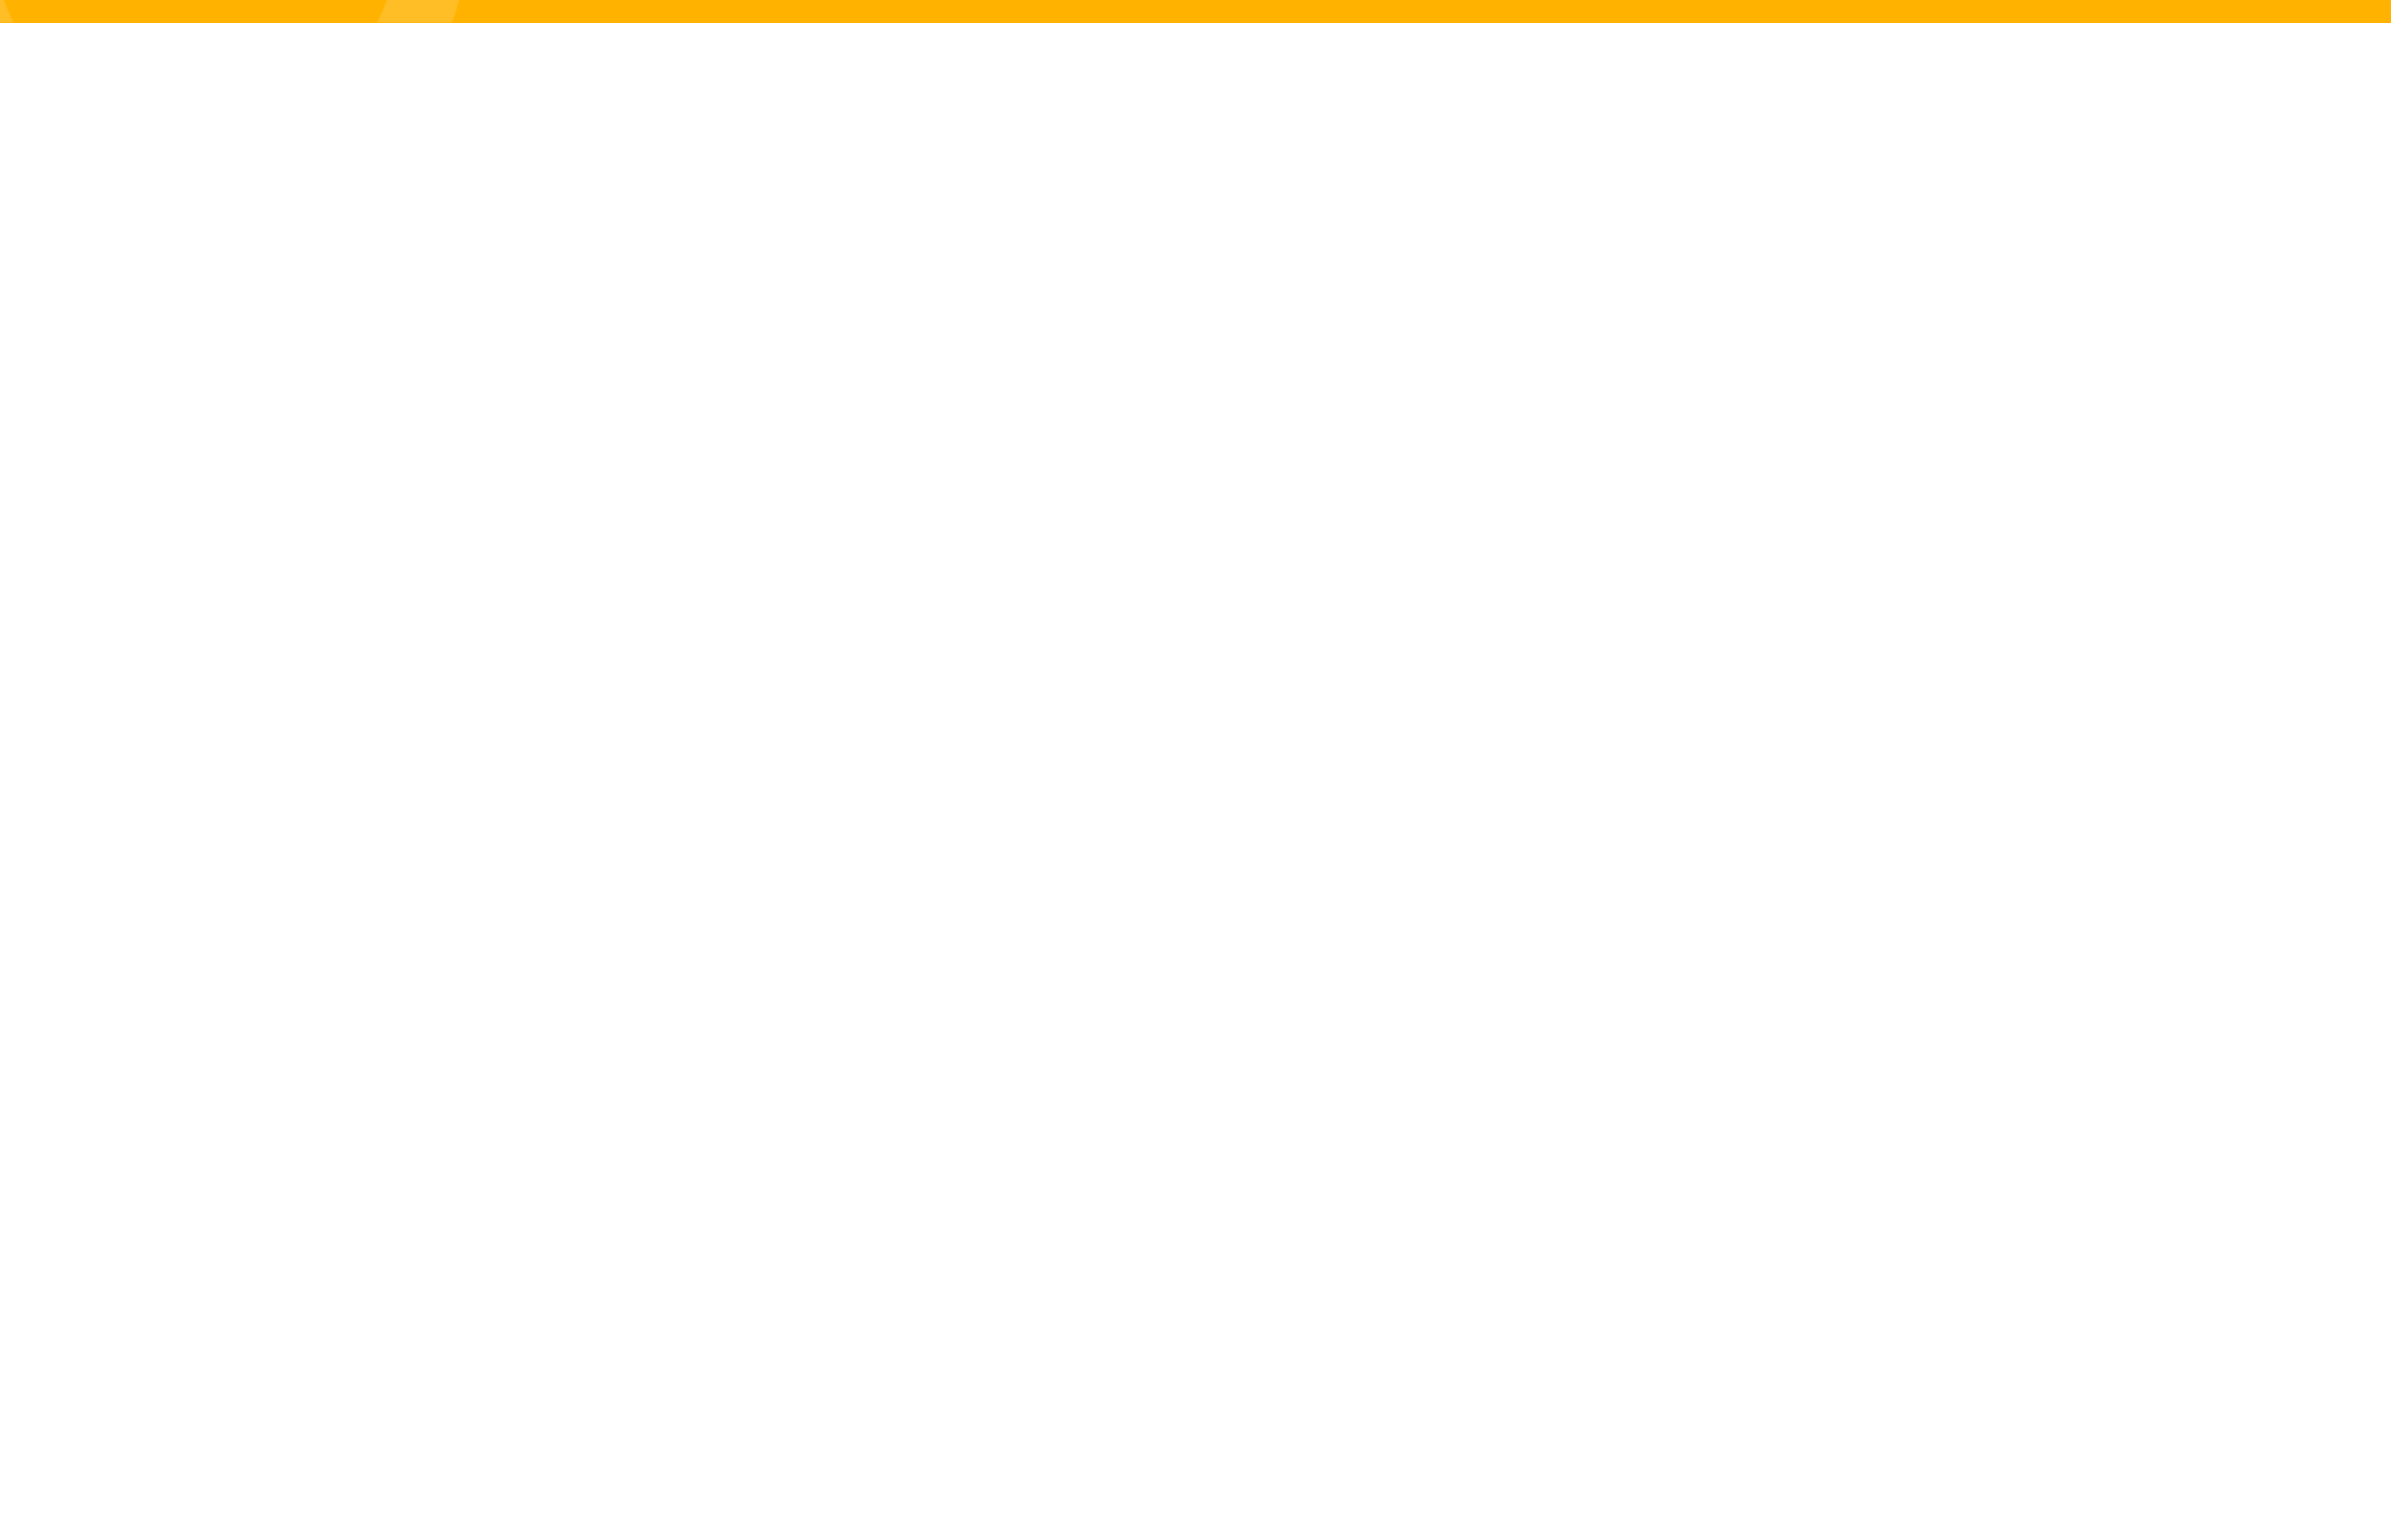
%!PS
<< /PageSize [2391 1535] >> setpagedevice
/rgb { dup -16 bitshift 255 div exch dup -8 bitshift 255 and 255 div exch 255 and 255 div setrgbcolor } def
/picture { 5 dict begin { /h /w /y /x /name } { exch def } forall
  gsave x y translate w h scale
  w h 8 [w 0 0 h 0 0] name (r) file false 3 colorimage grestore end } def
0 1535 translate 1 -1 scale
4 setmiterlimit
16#FFFFFF rgb
0 0 2391 1535 rectfill
16#FFB300 rgb
0 0 2391 23 rectfill
(pic1.raw) 0 0 459 23 picture
showpage
